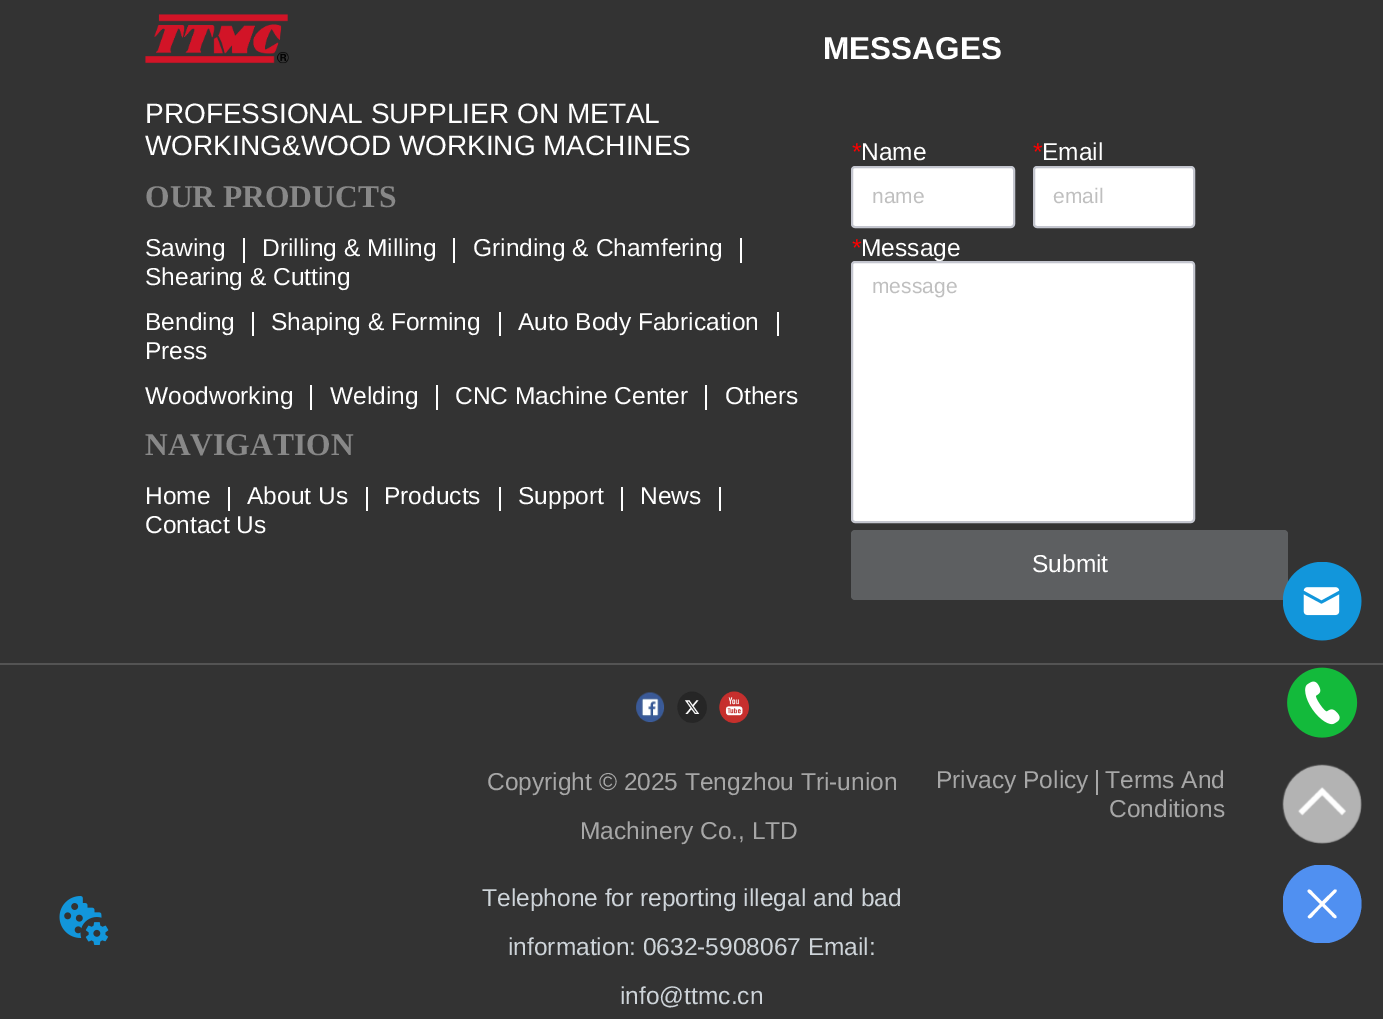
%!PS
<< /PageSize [1383 1019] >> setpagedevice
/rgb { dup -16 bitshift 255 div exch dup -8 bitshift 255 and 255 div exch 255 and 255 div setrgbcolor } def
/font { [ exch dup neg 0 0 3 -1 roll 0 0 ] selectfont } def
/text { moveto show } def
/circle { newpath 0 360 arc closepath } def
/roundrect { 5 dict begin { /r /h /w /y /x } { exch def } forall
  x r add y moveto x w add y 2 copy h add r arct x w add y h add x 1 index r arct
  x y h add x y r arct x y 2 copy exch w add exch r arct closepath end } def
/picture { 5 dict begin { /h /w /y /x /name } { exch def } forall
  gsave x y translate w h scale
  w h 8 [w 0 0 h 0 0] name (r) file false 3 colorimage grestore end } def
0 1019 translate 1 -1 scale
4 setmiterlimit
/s1 { /LiberationSans-Regular 28 font 16#FFFFFF rgb } def
/s2 { /LiberationSerif-Bold 31.5 font 16#888888 rgb } def
/s3 { /LiberationSans-Regular 24.5 font 16#FFFFFF rgb } def
/s4 { /LiberationSans-Bold 31.5 font 16#FFFFFF rgb } def
/s5 { /LiberationSans-Italic 24.5 font 16#FF0000 rgb } def
/s6 { /LiberationSans-Regular 21 font 16#BFBFBF rgb } def
/s7 { /LiberationSans-Regular 24.5 font 16#A7A7A7 rgb } def
/s8 { /LiberationSans-Regular 24.5 font 16#CED4D9 rgb } def
16#333333 rgb
0 0 1383 1019 rectfill
(pic1.raw) 59 896 50 49 picture
(pic2.raw) 145 14 144 50 picture
s1
(PROFESSIONAL SUPPLIER ON METAL) 145 123 text
(WORKING&WOOD WORKING MACHINES) 145 155 text
s2
(OUR PRODUCTS) 145 207 text
s3
(Sawing) 145 256 text
243 238 2 25 rectfill
(Drilling & Milling) 262 256 text
453 238 2 25 rectfill
(Grinding & Chamfering) 473 256 text
740 238 2 25 rectfill
(Shearing & Cutting) 145 285 text
(Bending) 145 330 text
252 312 2 24 rectfill
(Shaping & Forming) 271 330 text
499 312 2 24 rectfill
(Auto Body Fabrication) 518 330 text
777 312 2 24 rectfill
(Press) 145 359 text
(Woodworking) 145 404 text
310 385 2 25 rectfill
(Welding) 330 404 text
436 385 2 25 rectfill
(CNC Machine Center) 455 404 text
705 385 2 25 rectfill
(Others) 725 404 text
s2
(NAVIGATION) 145 455 text
s3
(Home) 145 504 text
228 487 2 24 rectfill
(About Us) 247 504 text
366 487 2 24 rectfill
(Products) 384 504 text
499 487 2 24 rectfill
(Support) 518 504 text
621 487 2 24 rectfill
(News) 640 504 text
719 487 2 24 rectfill
(Contact Us) 145 533 text
s4
(MESSAGES) 823 59 text
s5
(*) 851 160 text
s3
(Name) 861 160 text
852 167 162 60 3 roundrect gsave fill grestore
16#C4C6CF rgb
2 setlinewidth
stroke
s6
(name) 872 203 text
s5
(*) 1032 160 text
s3
(Email) 1042 160 text
1034 167 160 60 3 roundrect gsave fill grestore
16#C4C6CF rgb
stroke
s6
(email) 1053 203 text
s5
(*) 851 256 text
s3
(Message) 861 256 text
852 262 342 260 3 roundrect gsave fill grestore
16#C4C6CF rgb
stroke
s6
(message) 872 293 text
16#5D5F61 rgb
851 530 437 70 4 roundrect fill
s3
(Submit) 1032 572 text
(pic3.raw) 1283 562 79 79 picture
(pic4.raw) 1287 667 71 71 picture
(pic5.raw) 1282 764 80 80 picture
gsave
1283 865 79 78 rectclip
16#5090F1 rgb
1322 904 39.5 circle fill
grestore
1324.5 904 moveto 1334 894 lineto 1335 893 1338 891 1336 889.5 curveto 1334.5 889.5 lineto 1322 901.5 lineto 1312.5 892 lineto 1311.5 891 1310 888.5 1308 890 curveto 1306.5 891.5 1309.5 893.5 1310 894 curveto 1320 904 lineto 1308 916 lineto 1307.5 917 1308 917.5 1308.5 918 curveto 1310.5 919.5 1313.5 915 1314.5 914 curveto 1322 906 lineto 1332 916 lineto 1333 917 1335 919.5 1336.5 917.5 curveto 1336.5 916 lineto closepath fill
16#545454 rgb
0 663 1383 2 rectfill
(pic6.raw) 636 692 29 31 picture
(pic7.raw) 677 691 30 32 picture
(pic8.raw) 719 691 30 32 picture
s7
(Copyright © 2025 Tengzhou Tri-union) 487 790 text
(Machinery Co., LTD) 580 839 text
s8
(Telephone for reporting illegal and bad) 482 906 text
(information: 0632-5908067 Email:) 508 955 text
(info@ttmc.cn) 620 1004 text
s7
(Privacy Policy) 936 788 text
1096 770 2 25 rectfill
(Terms And) 1105 788 text
(Conditions) 1109 817 text
showpage
